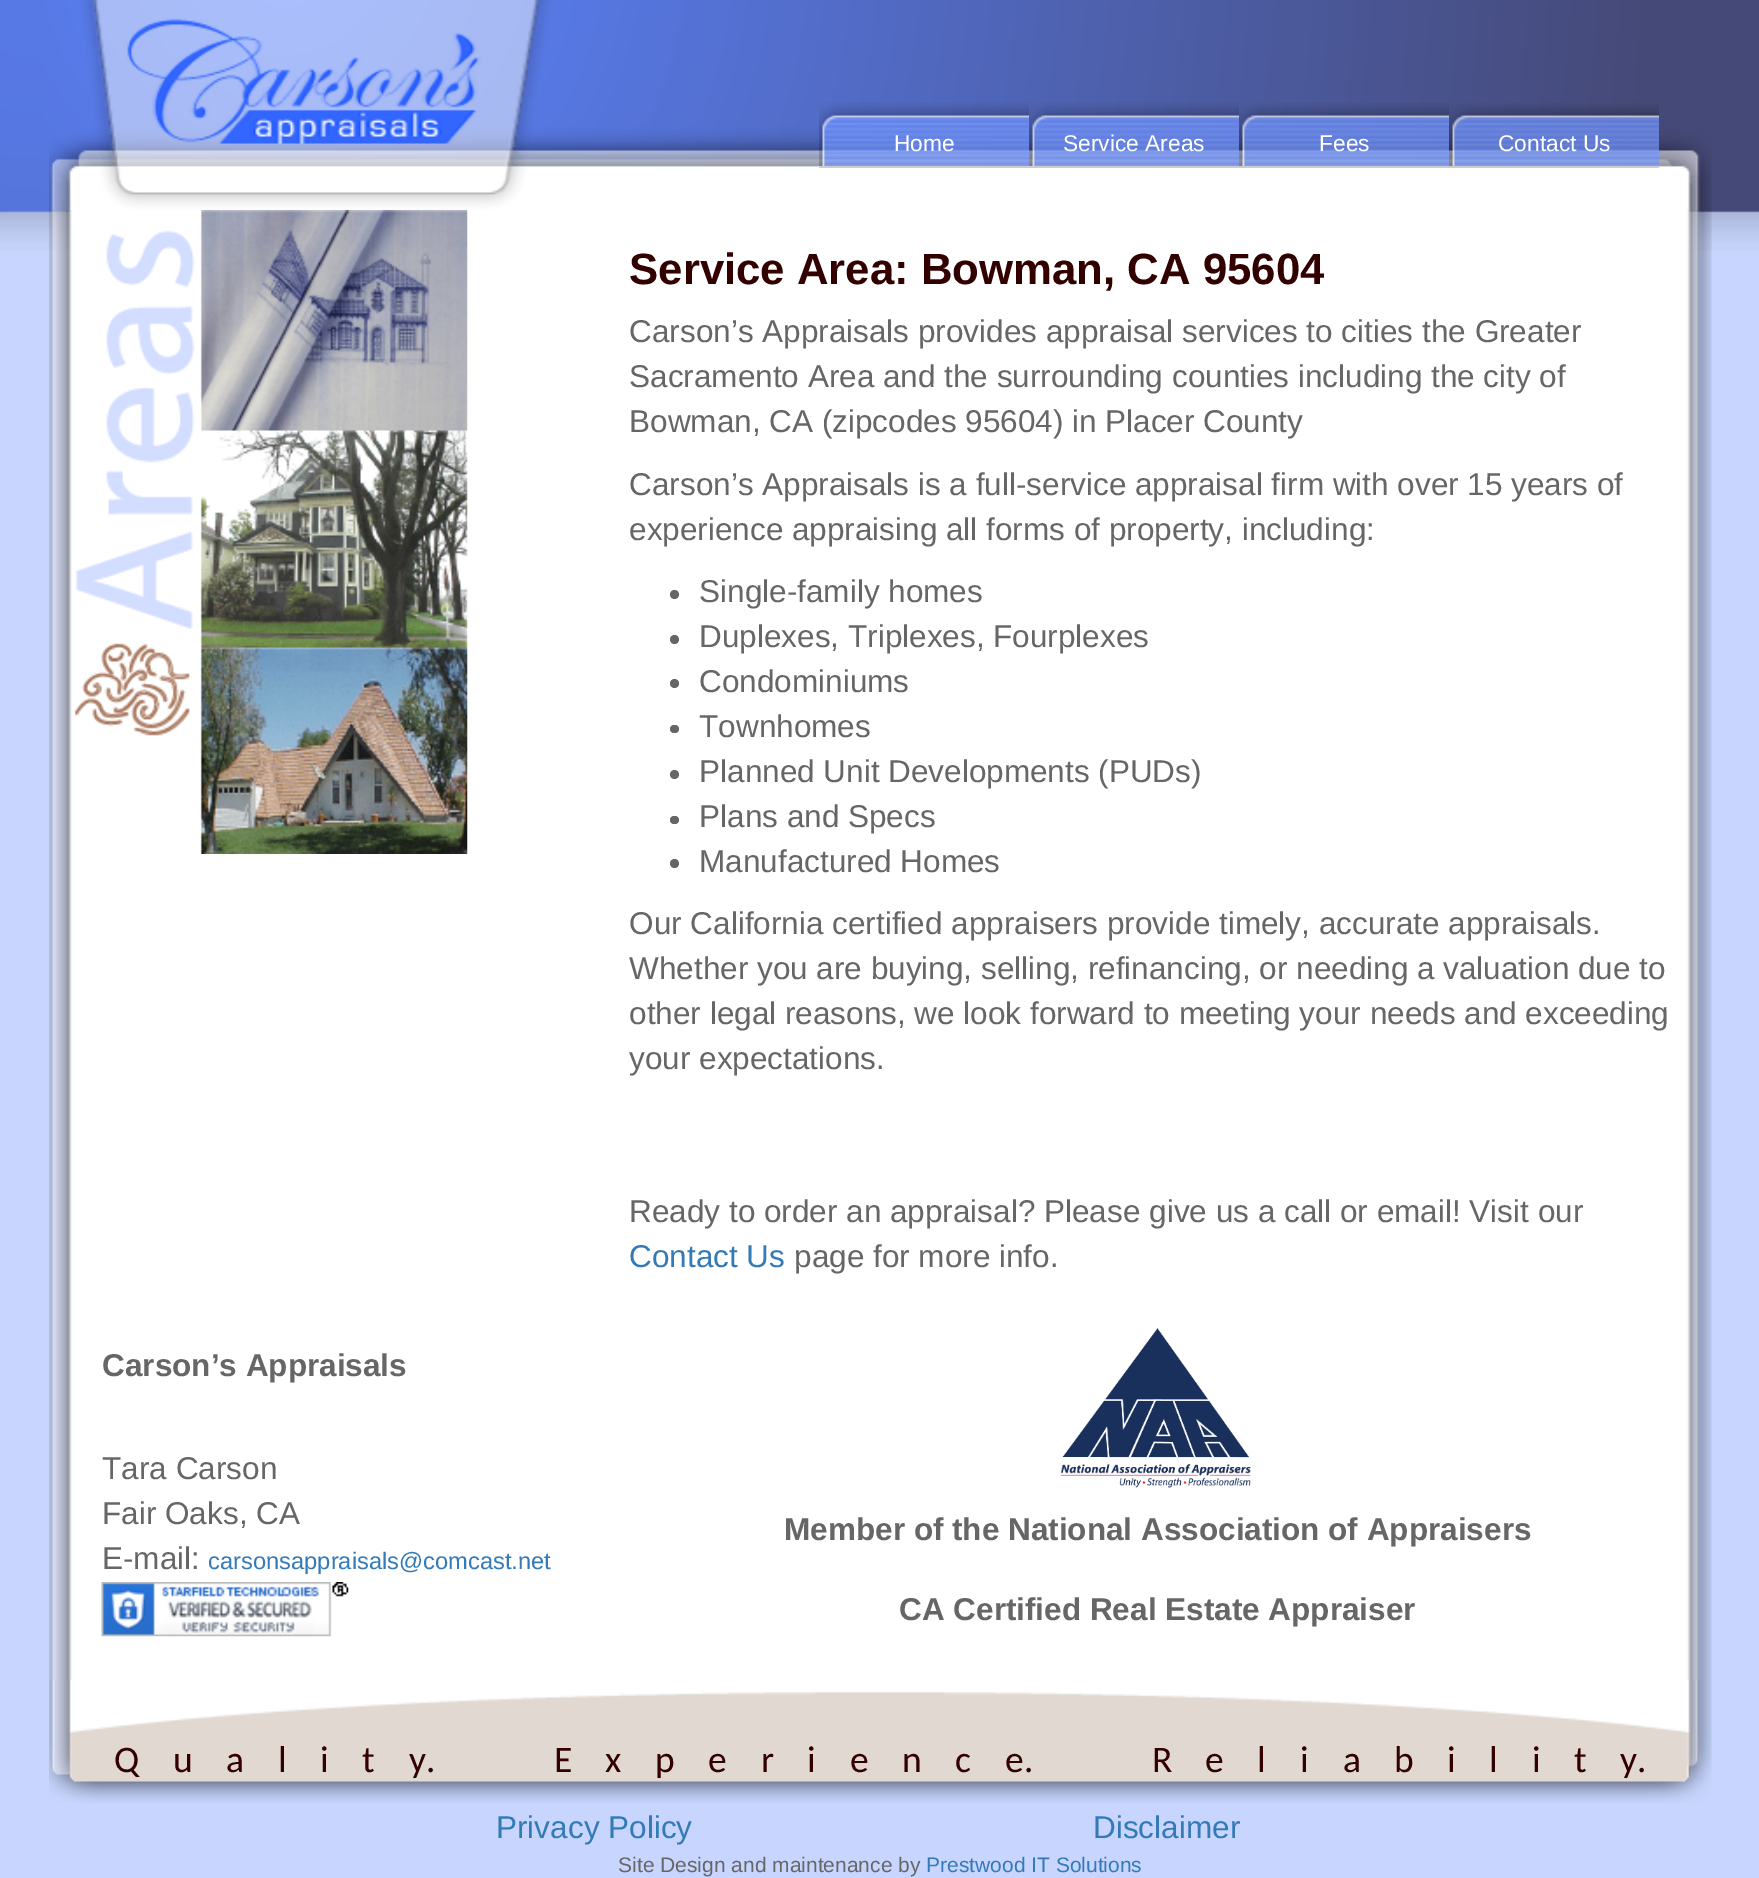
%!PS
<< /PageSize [1759 1878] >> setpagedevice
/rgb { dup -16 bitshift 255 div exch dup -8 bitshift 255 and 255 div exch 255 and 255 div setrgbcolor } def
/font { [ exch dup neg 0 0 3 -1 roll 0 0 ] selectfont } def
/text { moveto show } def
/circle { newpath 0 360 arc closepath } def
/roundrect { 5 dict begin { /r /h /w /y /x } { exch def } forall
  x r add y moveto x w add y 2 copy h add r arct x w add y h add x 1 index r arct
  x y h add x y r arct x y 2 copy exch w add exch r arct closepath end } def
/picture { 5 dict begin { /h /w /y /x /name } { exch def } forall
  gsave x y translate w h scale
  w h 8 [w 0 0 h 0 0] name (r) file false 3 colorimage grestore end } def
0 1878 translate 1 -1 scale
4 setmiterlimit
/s1 { /LiberationSans-Regular 22.75 font 16#FFFFFF rgb } def
/s2 { /LiberationSans-Bold 43.75 font 16#330000 rgb } def
/s3 { /LiberationSans-Regular 31.5 font 16#666666 rgb } def
/s4 { /LiberationSans-Regular 31.5 font 16#337AB7 rgb } def
/s5 { /LiberationSans-Bold 31.5 font 16#666666 rgb } def
/s6 { /LiberationSans-Regular 23.7 font 16#337AB7 rgb } def
/s7 { /Carlito-Regular 37.5 font 16#330000 rgb } def
/s8 { /LiberationSans-Regular 21 font 16#666666 rgb } def
/s9 { /LiberationSans-Regular 21 font 16#337AB7 rgb } def
16#C8D6FF rgb
0 0 1759 1878 rectfill
(pic1.raw) 0 0 1759 251 picture
(pic2.raw) 49 0 1663 210 picture
(pic3.raw) 819 102 210 64 picture
16#CCCCCC rgb
819 166 840 2 rectfill
s1
(Home) 894 151 text
(pic4.raw) 1029 102 210 64 picture
(Service Areas) 1063 151 text
(pic5.raw) 1239 103 210 63 picture
(Fees) 1319 151 text
(pic6.raw) 1449 103 210 63 picture
(Contact Us) 1498 151 text
(pic7.raw) 49 210 1663 1470 picture
(pic8.raw) 75 210 393 644 picture
s2
(Service Area: Bowman, CA 95604) 629 284 text
s3
(Carson’s Appraisals provides appraisal services to cities the Greater) 629 342 text
(Sacramento Area and the surrounding counties including the city of) 629 387 text
(Bowman, CA \(zipcodes 95604\) in Placer County) 629 432 text
(Carson’s Appraisals is a full-service appraisal firm with over 15 years of) 629 495 text
(experience appraising all forms of property, including:) 629 540 text
674.5 594.5 4.5 circle fill
(Single-family homes) 699 602 text
674.5 639.5 4.5 circle fill
(Duplexes, Triplexes, Fourplexes) 699 647 text
674.5 683.5 4.5 circle fill
(Condominiums) 699 692 text
670 725 9 8 4 roundrect fill
(Townhomes) 699 737 text
674.5 774.5 4.5 circle fill
(Planned Unit Developments \(PUDs\)) 699 782 text
670 816 9 8 4 roundrect fill
(Plans and Specs) 699 827 text
674.5 863.5 4.5 circle fill
(Manufactured Homes) 699 872 text
(Our California certified appraisers provide timely, accurate appraisals.) 629 934 text
(Whether you are buying, selling, refinancing, or needing a valuation due to) 629 979 text
(other legal reasons, we look forward to meeting your needs and exceeding) 629 1024 text
(your expectations.) 629 1069 text
(Ready to order an appraisal? Please give us a call or email! Visit our) 629 1222 text
s4
(Contact Us) 629 1267 text
s3
(page for more info.) 794 1267 text
s5
(Carson’s Appraisals) 102 1376 text
s3
(Tara Carson) 102 1479 text
(Fair Oaks, CA) 102 1524 text
(E-mail:) 102 1569 text
s6
(carsonsappraisals@comcast.net) 208 1569 text
(pic9.raw) 101 1582 248 55 picture
(pic10.raw) 1060 1328 191 160 picture
s5
(Member of the National Association of Appraisers) 784 1540 text
(CA Certified Real Estate Appraiser) 899 1620 text
(pic11.raw) 49 1680 1663 123 picture
s7
(Q) 114 1772 text
(u) 173 1772 text
(a) 226 1772 text
(l) 278 1772 text
(i) 320 1772 text
(t) 362 1772 text
(y.              E) 409 1772 text
(x) 605 1772 text
(p) 655 1772 text
(e) 708 1772 text
(r) 761 1772 text
(i) 807 1772 text
(e) 850 1772 text
(n) 902 1772 text
(c) 955 1772 text
(e.              R) 1005 1772 text
(e) 1205 1772 text
(l) 1257 1772 text
(i    a) 1300 1772 text
(b) 1394 1772 text
(i) 1447 1772 text
(l    i    t    y.) 1489 1772 text
s4
(Privacy Policy) 496 1838 text
(Disclaimer) 1093 1838 text
s8
(Site Design and maintenance by) 618 1872 text
s9
(Prestwood IT Solutions) 926 1872 text
showpage
